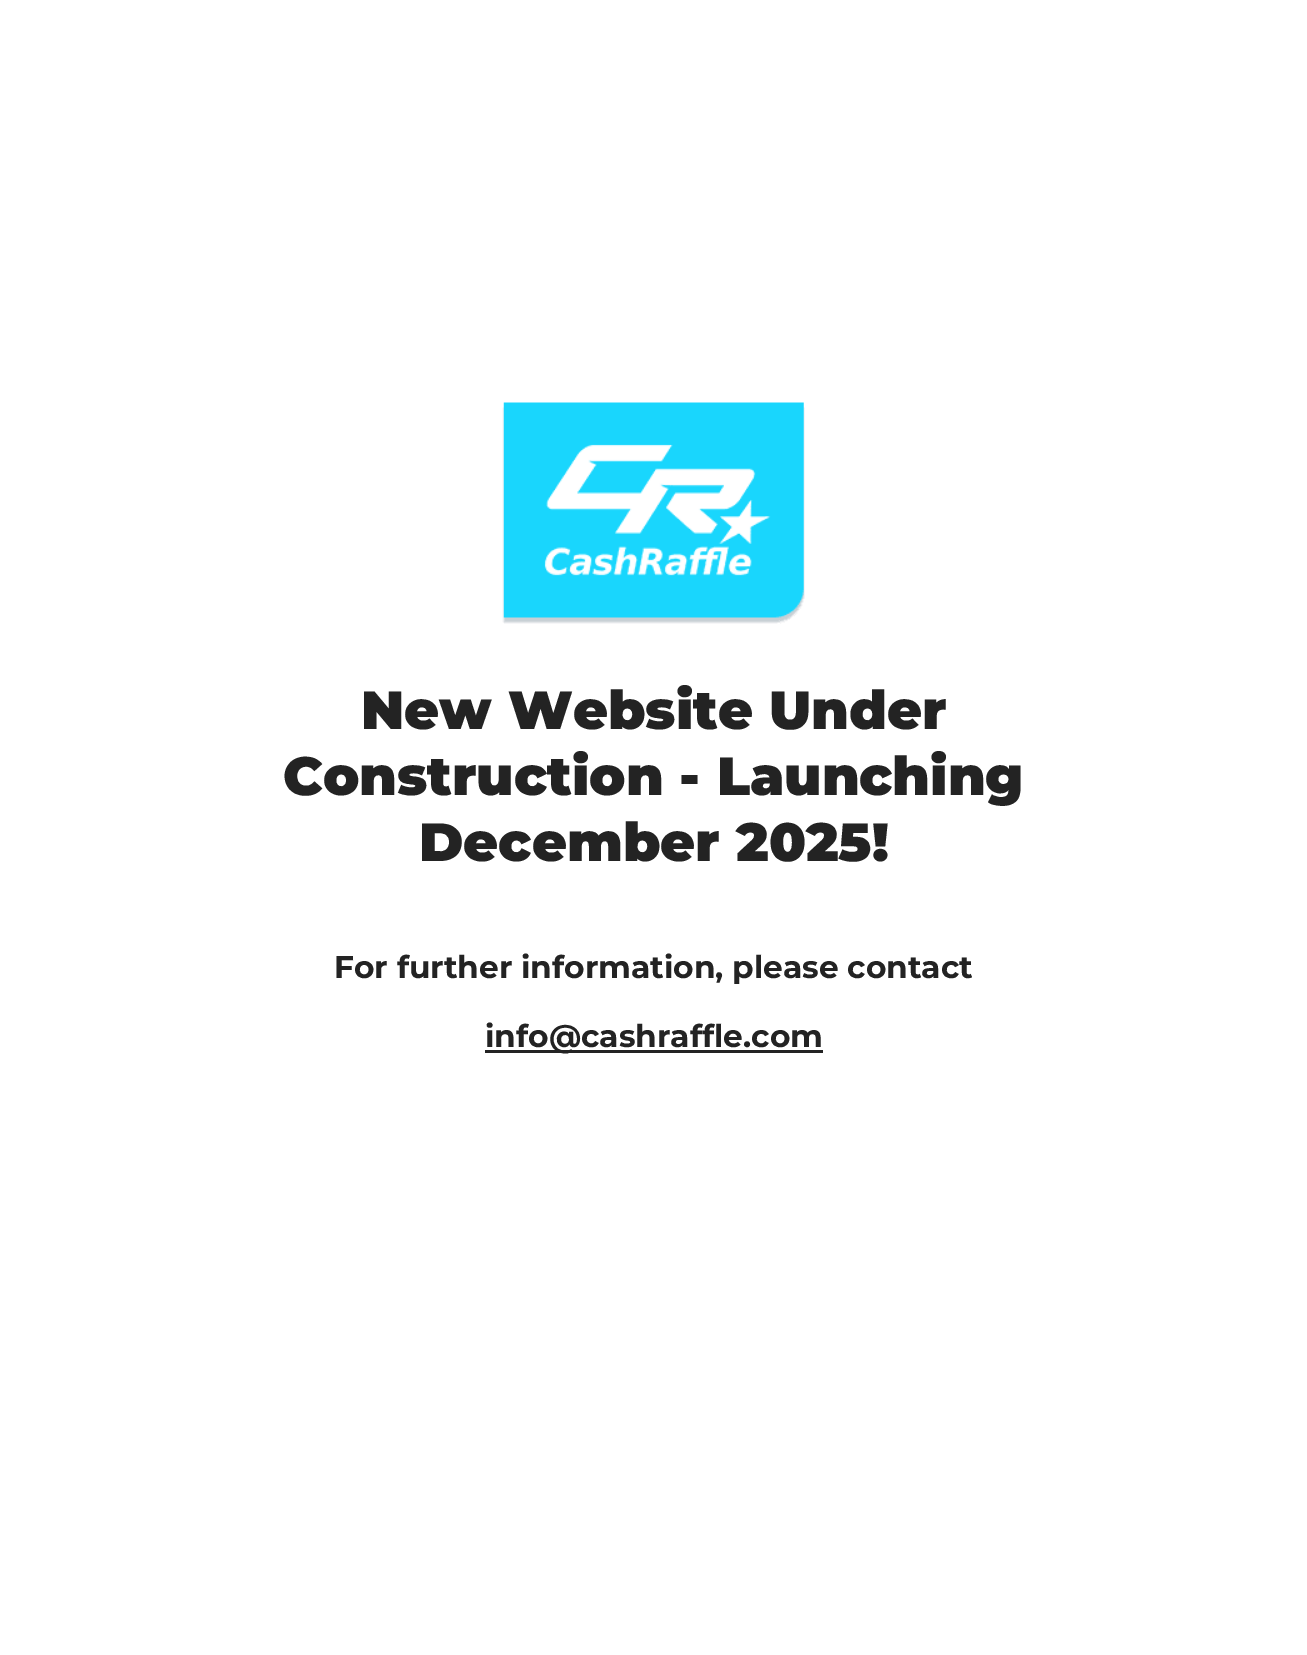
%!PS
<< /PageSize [1307 1655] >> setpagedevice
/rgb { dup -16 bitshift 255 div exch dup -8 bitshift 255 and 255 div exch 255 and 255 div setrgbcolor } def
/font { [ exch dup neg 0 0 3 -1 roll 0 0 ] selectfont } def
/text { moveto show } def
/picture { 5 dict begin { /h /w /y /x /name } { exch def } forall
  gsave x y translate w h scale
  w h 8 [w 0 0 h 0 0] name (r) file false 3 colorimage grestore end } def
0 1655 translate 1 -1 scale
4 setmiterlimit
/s1 { /Montserrat-Black 53.75 font 16#232323 rgb } def
/s2 { /Montserrat-Bold 31.25 font 16#232323 rgb } def
16#FFFFFF rgb
0 0 1307 1655 rectfill
(pic1.raw) 502 402 303 222 picture
s1
(New Website Under) 361 729 text
(Construction - Launching) 283 795 text
(December 2025!) 419 861 text
s2
(For further information, please contact) 334 978 text
485 1050 338 3 rectfill
(info@cashraffle.com) 485 1047 text
showpage
